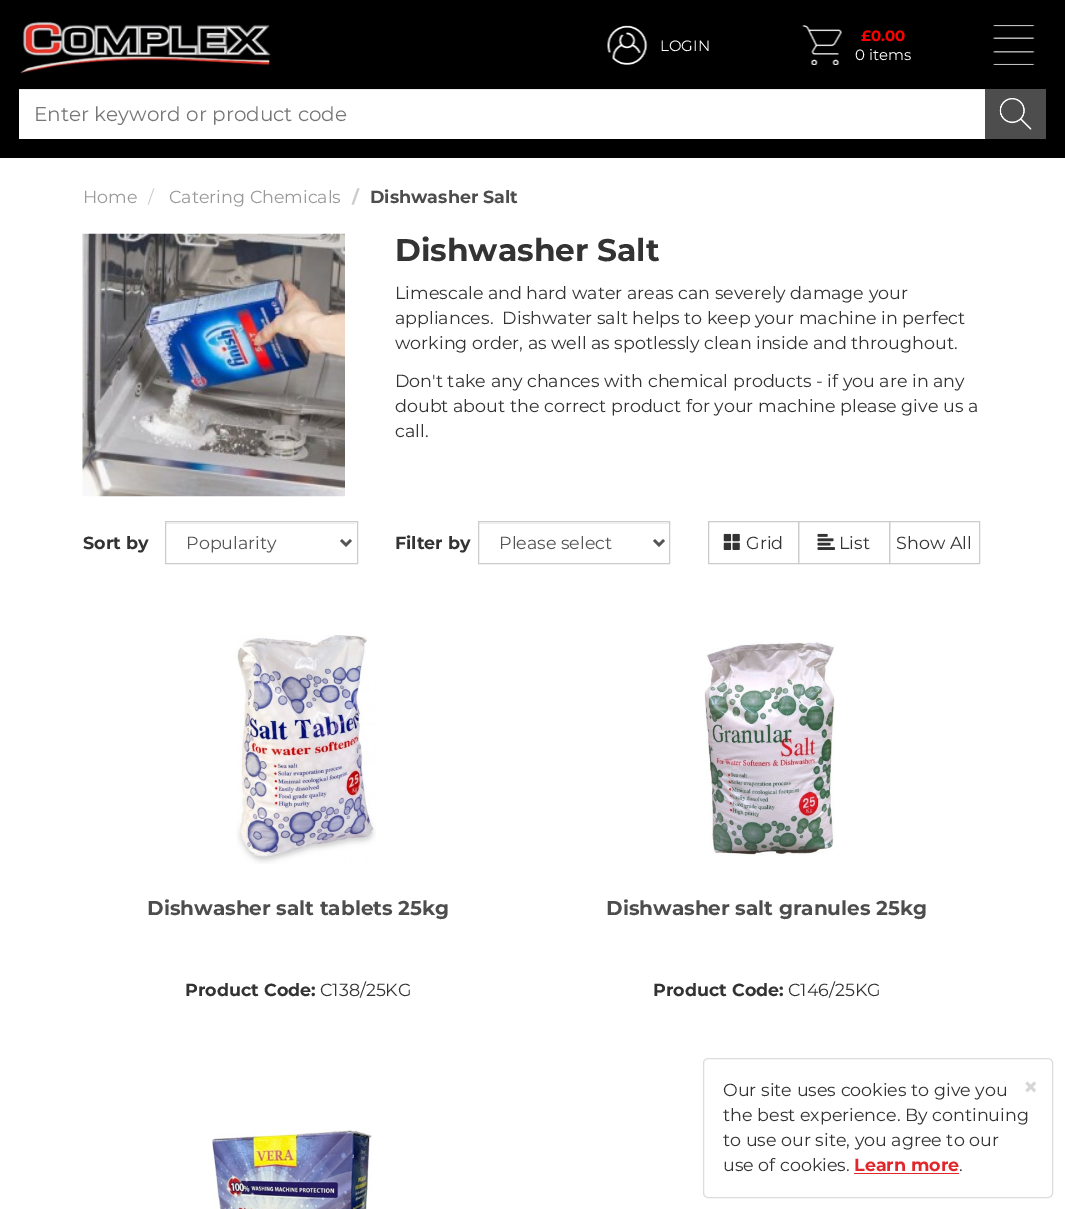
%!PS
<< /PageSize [1065 1209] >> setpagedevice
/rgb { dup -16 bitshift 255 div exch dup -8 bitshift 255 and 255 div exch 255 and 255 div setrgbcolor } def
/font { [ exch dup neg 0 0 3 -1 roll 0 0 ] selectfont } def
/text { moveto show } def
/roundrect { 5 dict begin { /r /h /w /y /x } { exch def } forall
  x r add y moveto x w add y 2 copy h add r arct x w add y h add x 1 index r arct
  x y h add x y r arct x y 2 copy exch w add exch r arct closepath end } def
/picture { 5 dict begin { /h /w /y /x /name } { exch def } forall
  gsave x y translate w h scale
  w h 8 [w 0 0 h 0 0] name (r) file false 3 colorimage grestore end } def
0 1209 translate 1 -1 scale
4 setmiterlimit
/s1 { /Montserrat-Regular 15 font 16#FFFFFF rgb } def
/s2 { /Montserrat-Bold 15 font 16#FF0000 rgb } def
/s3 { /Montserrat-Regular 20 font 16#777777 rgb } def
/s4 { /Montserrat-Regular 17.5 font 16#999999 rgb } def
/s5 { /Montserrat-Regular 17.5 font 16#CCCCCC rgb } def
/s6 { /Montserrat-Bold 17.5 font 16#CCCCCC rgb } def
/s7 { /Montserrat-Bold 17.5 font 16#4D4D4D rgb } def
/s8 { /Montserrat-Bold 31.25 font 16#333333 rgb } def
/s9 { /Montserrat-Regular 17.5 font 16#333333 rgb } def
/s10 { /Montserrat-Bold 17.5 font 16#333333 rgb } def
/s11 { /Montserrat-Regular 17.5 font 16#555555 rgb } def
/s12 { /Montserrat-Bold 20 font 16#4D4D4D rgb } def
/s13 { /Montserrat-Bold 26 font 16#D6D6D6 rgb } def
/s14 { /Montserrat-Bold 17.5 font 16#E2272B rgb } def
16#FFFFFF rgb
0 0 1065 1209 rectfill
16#000000 rgb
0 0 1065 158 rectfill
(pic1.raw) 20 21 251 54 picture
(pic2.raw) 607 25 41 40 picture
s1
(LOGIN) 660 51 text
(pic3.raw) 802 25 40 40 picture
s2
(£0.00) 861 41 text
s1
(0 items) 855 60 text
(pic4.raw) 993 25 42 40 picture
19 90 966 49 rectfill
16#ECECEC rgb
19 89 966 1 rectfill
s3
(Enter keyword or product code) 34 121 text
16#4D4D4D rgb
985 89 61 50 rectfill
(pic5.raw) 999 98 33 32 picture
s4
(Home) 83 203 text
s5
(/) 148 203 text
s4
(Catering Chemicals) 169 203 text
s6
(/) 352 203 text
s7
(Dishwasher Salt) 370 203 text
(pic6.raw) 82 233 263 264 picture
s8
(Dishwasher Salt) 395 261 text
s9
(Limescale and hard water areas can severely damage your) 395 299 text
(appliances.  Dishwater salt helps to keep your machine in perfect) 395 324 text
(working order, as well as spotlessly clean inside and throughout.) 395 349 text
(Don't take any chances with chemical products - if you are in any) 395 387 text
(doubt about the correct product for your machine please give us a) 395 412 text
(call.) 395 437 text
s10
(Sort by) 83 549 text
16#ECECEC rgb
166 523 190 1 rectfill
16#CCCCCC rgb
165.5 521.5 192 42 rectstroke
16#555555 rgb
2.5 setlinewidth
341 540 moveto 346 545 lineto 351 540 lineto stroke
s11
(Popularity) 186 549 text
s10
(Filter by) 395 549 text
16#ECECEC rgb
479 523 190 1 rectfill
16#CCCCCC rgb
1 setlinewidth
478.5 521.5 191 42 rectstroke
16#555555 rgb
2.5 setlinewidth
654 540 moveto 659 545 lineto 664 540 lineto stroke
s11
(Please select) 499 549 text
16#CCCCCC rgb
1 setlinewidth
708.5 521.5 90 42 rectstroke
(pic7.raw) 723 533 17 17 picture
s9
(Grid) 746 549 text
16#CCCCCC rgb
798.5 521.5 91 42 rectstroke
(pic8.raw) 817 533 18 17 picture
s9
(List) 839 549 text
16#CCCCCC rgb
889.5 521.5 90 42 rectstroke
s9
(Show All) 896 549 text
(pic9.raw) 236 635 140 229 picture
s12
(Dishwasher salt tablets 25kg) 147 915 text
s10
(Product Code:) 185 996 text
s9
(C138/25KG) 320 996 text
(pic10.raw) 704 641 131 215 picture
s12
(Dishwasher salt granules 25kg) 606 915 text
s10
(Product Code:) 653 996 text
s9
(C146/25KG) 788 996 text
(pic11.raw) 211 1129 161 80 picture
16#DDDDDD rgb
703.5 1058.5 349 139 4.5 roundrect stroke
s9
(Our site uses cookies to give you) 723 1096 text
s13
(×) 1023 1096 text
s9
(the best experience. By continuing) 723 1121 text
(to use our site, you agree to our) 723 1146 text
(use of cookies.) 723 1171 text
s14
(Learn more) 854 1171 text
854 1173 105 1 rectfill
s9
(.) 959 1171 text
showpage
